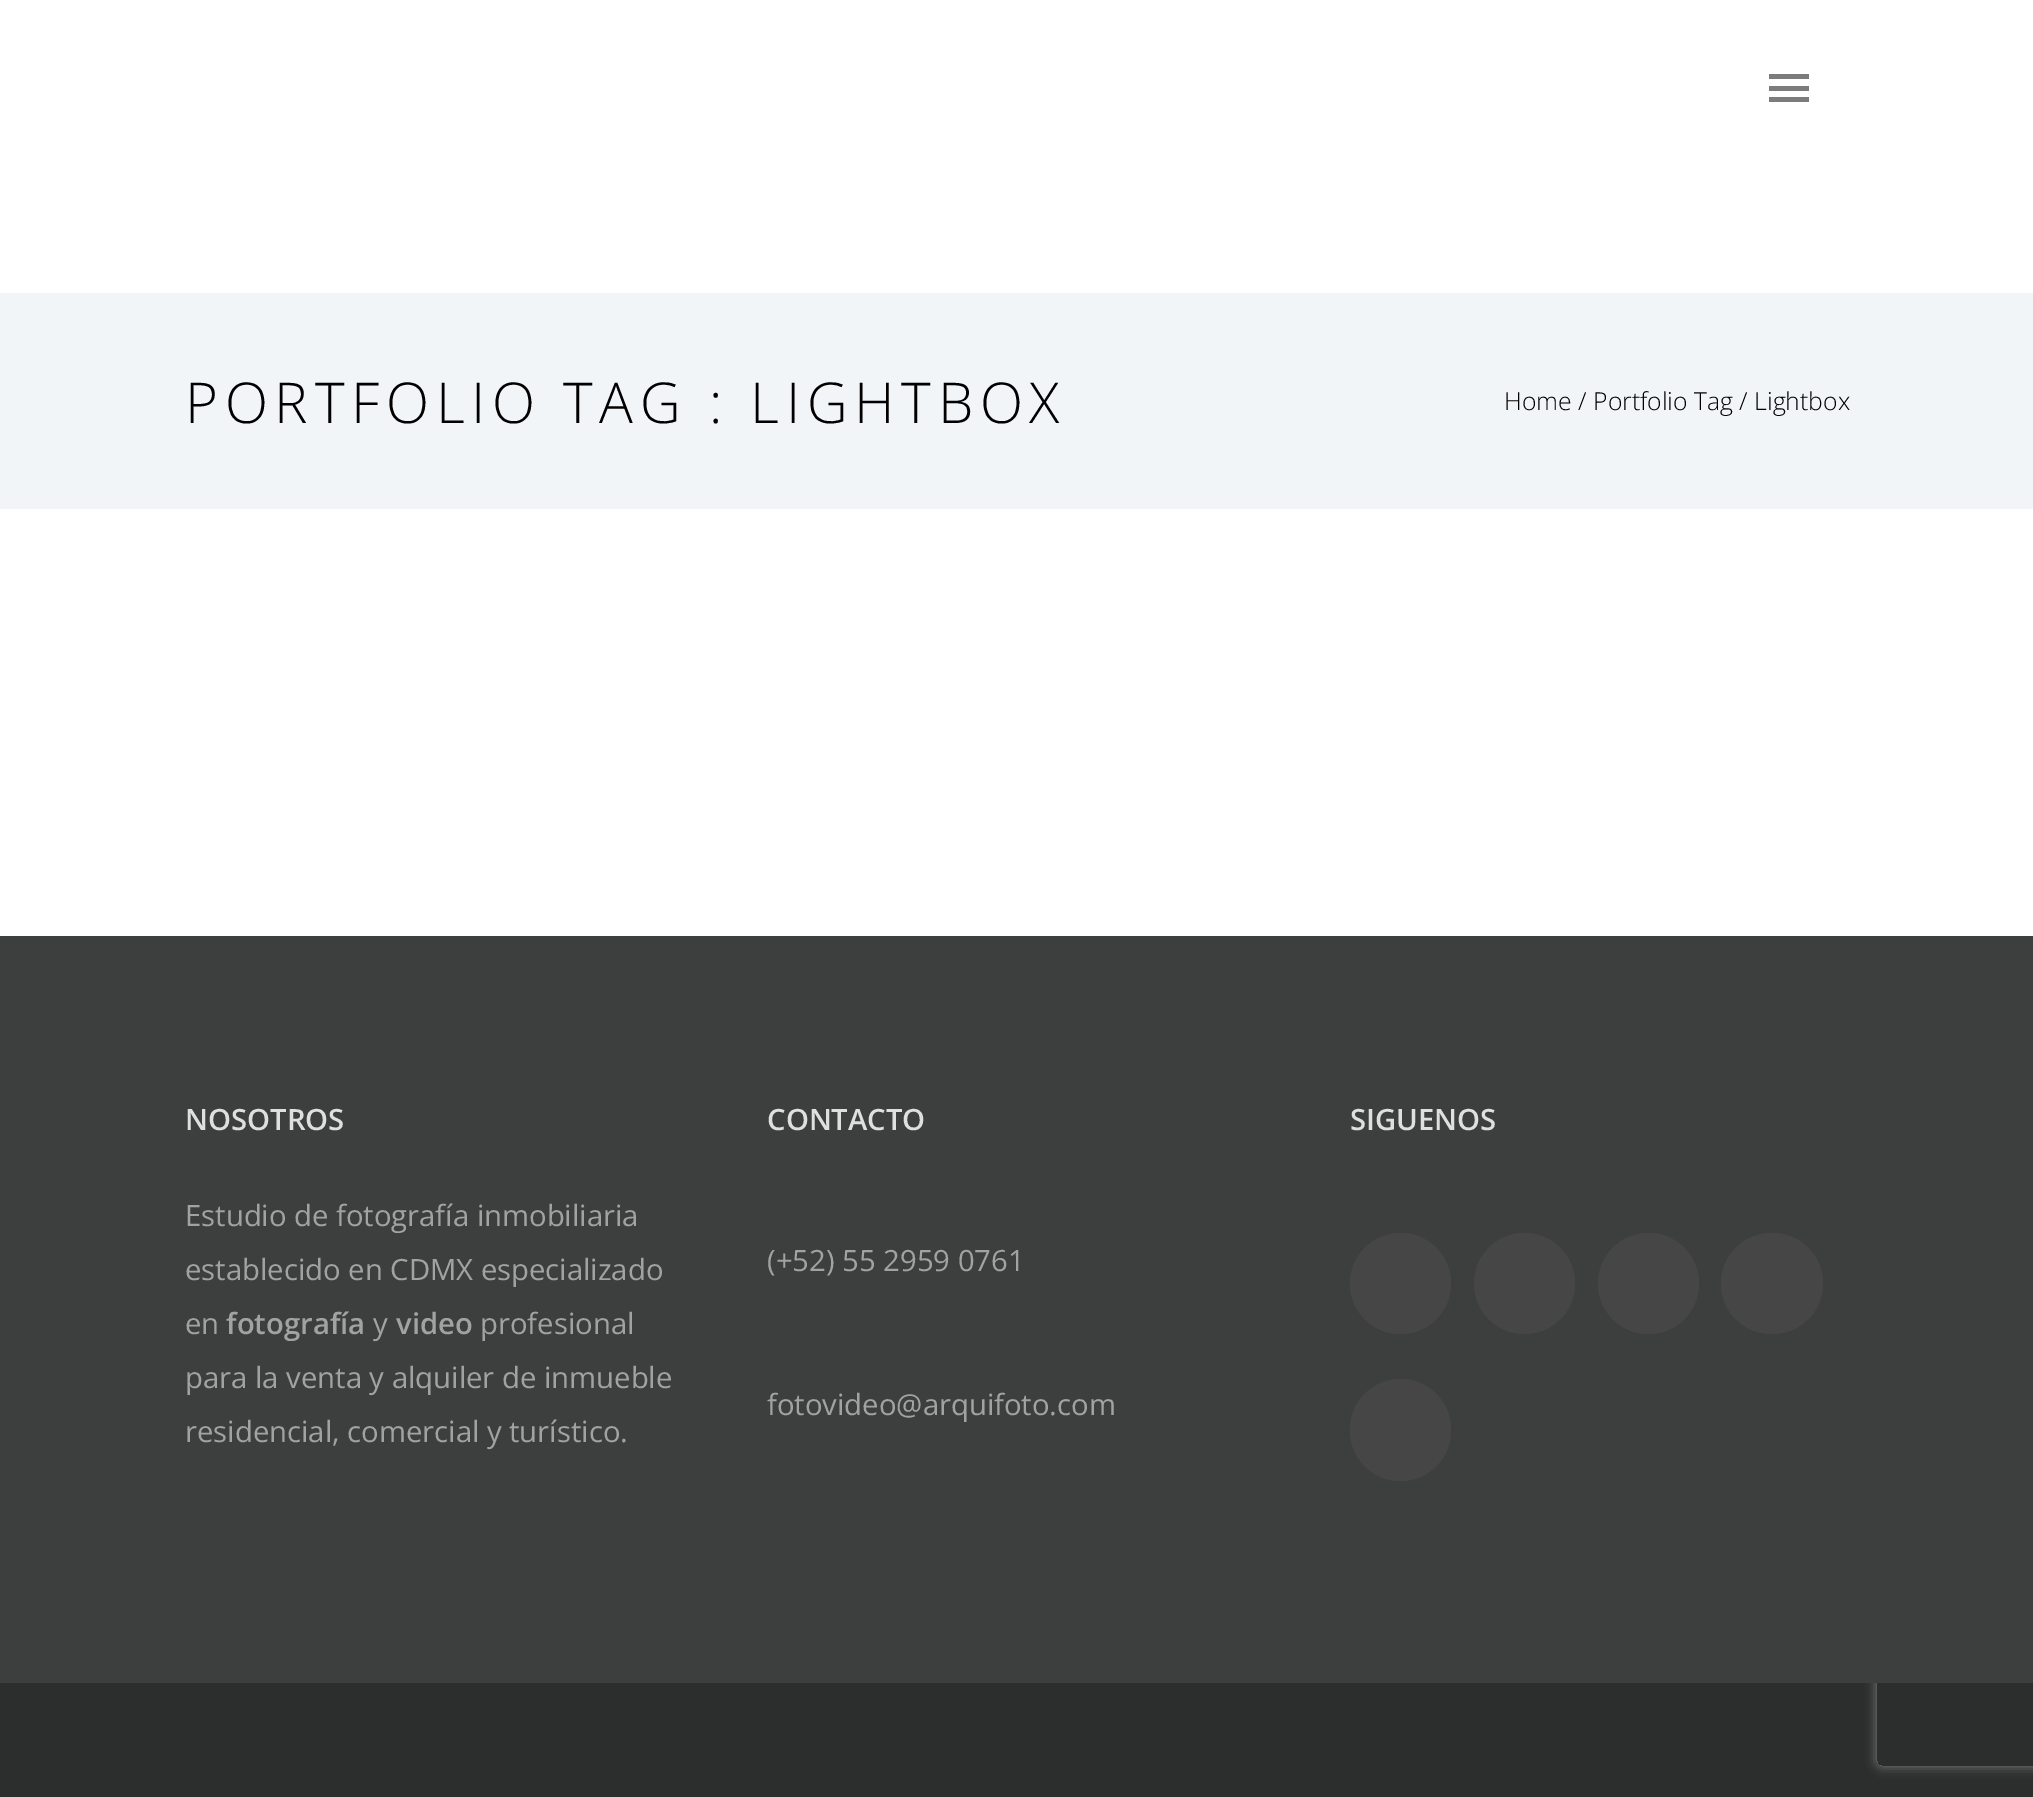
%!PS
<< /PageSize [2033 1797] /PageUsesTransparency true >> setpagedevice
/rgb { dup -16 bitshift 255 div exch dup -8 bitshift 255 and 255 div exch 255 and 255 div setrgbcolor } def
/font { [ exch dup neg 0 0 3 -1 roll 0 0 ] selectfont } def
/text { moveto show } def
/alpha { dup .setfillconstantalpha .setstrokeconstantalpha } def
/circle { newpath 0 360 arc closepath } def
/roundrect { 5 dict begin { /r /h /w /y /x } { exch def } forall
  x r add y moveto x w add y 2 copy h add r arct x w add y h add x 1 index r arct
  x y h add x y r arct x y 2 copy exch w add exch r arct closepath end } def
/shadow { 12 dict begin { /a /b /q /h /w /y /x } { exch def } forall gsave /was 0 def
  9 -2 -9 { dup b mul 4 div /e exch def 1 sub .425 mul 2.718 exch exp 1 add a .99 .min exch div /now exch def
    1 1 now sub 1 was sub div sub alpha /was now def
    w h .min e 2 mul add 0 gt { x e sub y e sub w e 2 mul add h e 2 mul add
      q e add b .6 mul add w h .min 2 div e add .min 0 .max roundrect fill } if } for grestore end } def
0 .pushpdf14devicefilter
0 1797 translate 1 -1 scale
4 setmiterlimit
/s1 { /OpenSans-Light 24.75 font 16#000000 rgb } def
/s2 { /OpenSans-SemiBold 29.25 font 16#DFDFDF rgb } def
/s3 { /OpenSans-Regular 29.25 font 16#A2A2A2 rgb } def
/s4 { /OpenSans-SemiBold 29.25 font 16#A2A2A2 rgb } def
16#FFFFFF rgb
0 0 2033 1797 rectfill
16#7C7C7C rgb
1769 86 40 5 rectfill
1769 74 40 5 rectfill
1769 97 40 5 rectfill
16#F2F5F8 rgb
0 293 2033 216 rectfill
/OpenSans-Light 56.25 font
16#000000 rgb
185 423 moveto 6.75 0 (PORTFOLIO TAG : LIGHTBOX) ashow
s1
(Home / Portfolio Tag / Lightbox) 1504 410 text
16#2C2E2E rgb
0 1683 2033 114 rectfill
gsave
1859 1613 moveto 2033 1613 lineto 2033 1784 lineto 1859 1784 lineto closepath 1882 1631 moveto 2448 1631 lineto 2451 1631 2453 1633 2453 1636 curveto 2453 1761 lineto 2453 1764 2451 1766 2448 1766 curveto 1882 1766 lineto 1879 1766 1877 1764 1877 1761 curveto 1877 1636 lineto 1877 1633 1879 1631 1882 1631 curveto closepath eoclip newpath
16#808080 rgb
1877 1631 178 135 5 5.5 1 shadow
grestore
16#3D3F3E rgb
0 936 2033 747 rectfill
s2
(NOSOTROS) 185 1130 text
s3
(Estudio de fotografía inmobiliaria) 185 1226 text
(establecido en CDMX especializado) 185 1280 text
(en) 185 1334 text
s4
(fotografía) 226 1334 text
s3
(y) 373 1334 text
s4
(video) 396 1334 text
s3
(profesional) 480 1334 text
(para la venta y alquiler de inmueble) 185 1388 text
(residencial, comercial y turístico.) 185 1442 text
s2
(CONTACTO) 767 1130 text
s3
(\(+52\) 55 2959 0761) 767 1271 text
(fotovideo@arquifoto.com) 767 1415 text
s2
(SIGUENOS) 1350 1130 text
16#464646 rgb
1400.5 1283.5 50.5 circle fill
1524.5 1283.5 50.5 circle fill
1648.5 1283.5 50.5 circle fill
1721 1233 102 101 50.5 roundrect fill
1350 1379 101 102 50.5 roundrect fill
.poppdf14devicefilter showpage
